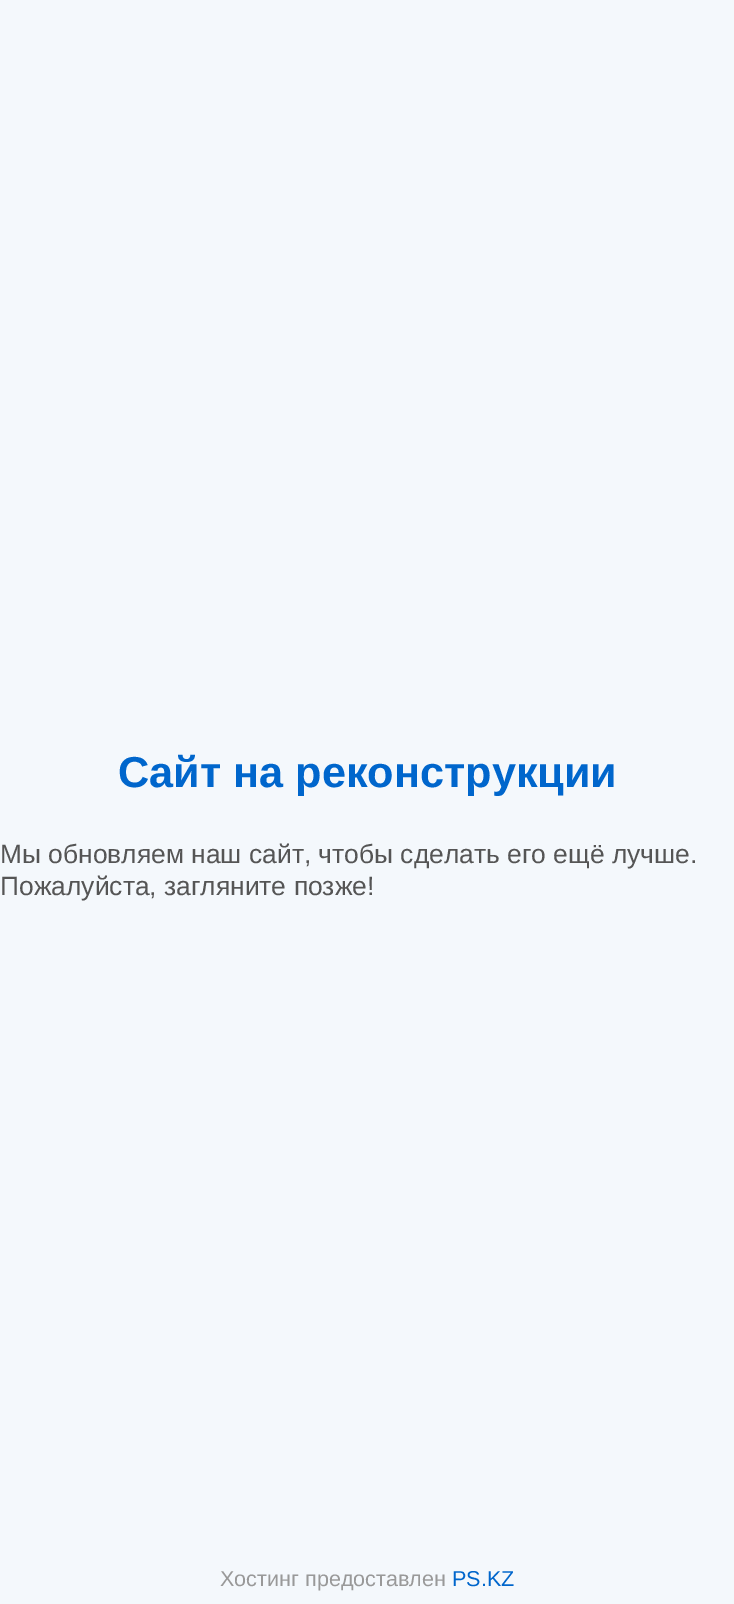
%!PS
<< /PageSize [734 1604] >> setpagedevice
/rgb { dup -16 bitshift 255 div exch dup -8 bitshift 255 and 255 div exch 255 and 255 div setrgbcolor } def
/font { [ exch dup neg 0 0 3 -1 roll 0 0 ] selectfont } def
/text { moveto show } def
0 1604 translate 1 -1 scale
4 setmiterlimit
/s1 { /LiberationSans-Bold 43.25 font 16#0066CC rgb } def
/s2 { /LiberationSans-Regular 26.4 font 16#555555 rgb } def
/s3 { /LiberationSans-Regular 21.6 font 16#999999 rgb } def
/s4 { /LiberationSans-Regular 21.6 font 16#0066CC rgb } def
16#F4F8FC rgb
0 0 734 1604 rectfill
s1
(Сайт на реконструкции) 118 787 text
s2
(Мы обновляем наш сайт, чтобы сделать его ещё лучше.) 0 863 text
(Пожалуйста, загляните позже!) 0 895 text
s3
(Хостинг предоставлен) 220 1586 text
s4
(PS.KZ) 452 1586 text
showpage
